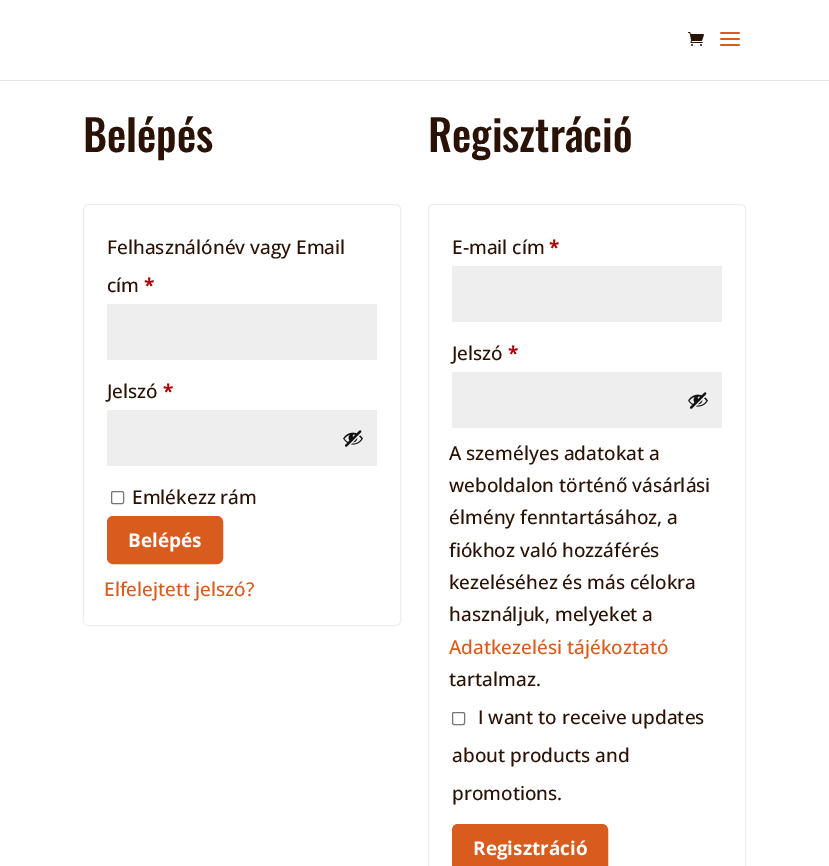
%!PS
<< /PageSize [829 866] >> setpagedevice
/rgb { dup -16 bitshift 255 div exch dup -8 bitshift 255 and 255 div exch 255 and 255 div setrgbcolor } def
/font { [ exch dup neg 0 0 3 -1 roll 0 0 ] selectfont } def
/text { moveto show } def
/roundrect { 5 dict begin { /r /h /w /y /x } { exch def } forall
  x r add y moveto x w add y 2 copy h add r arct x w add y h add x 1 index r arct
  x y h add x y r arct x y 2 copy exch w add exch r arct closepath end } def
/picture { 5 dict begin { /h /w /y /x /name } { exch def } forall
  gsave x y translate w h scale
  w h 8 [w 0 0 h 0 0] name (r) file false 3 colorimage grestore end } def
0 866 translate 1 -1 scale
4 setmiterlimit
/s1 { /Oswald-Medium 43 font 16#2B1206 rgb } def
/s2 { /OpenSans-Medium 19 font 16#2B1206 rgb } def
/s3 { /OpenSans-Bold 19 font 16#AA0000 rgb } def
/s4 { /OpenSans-Bold 19 font 16#FFFFFF rgb } def
/s5 { /OpenSans-Medium 19 font 16#D85C1D rgb } def
16#FFFFFF rgb
0 0 829 866 rectfill
16#E6E6E6 rgb
0 80 829 1 rectfill
(pic1.raw) 688 32 16 14 picture
(pic2.raw) 720 32 20 14 picture
s1
(Belépés) 83 152 text
16#EEEEEE rgb
83.5 204.5 317 421 4.5 roundrect stroke
s2
(Felhasználónév vagy Email) 107 254 text
(cím) 107 292 text
s3
(*) 144 292 text
16#EEEEEE rgb
107 304 270 56 rectfill
s2
(Jelszó) 107 398 text
s3
(*) 163 398 text
16#EEEEEE rgb
107 410 270 56 rectfill
(pic3.raw) 343 430 20 17 picture
16#767676 rgb
111.5 491.5 12 12 1.5 roundrect stroke
s2
(Emlékezz rám) 132 504 text
16#D85C1D rgb
108 517 114 46 5 roundrect gsave fill grestore
2 setlinewidth
stroke
s4
(Belépés) 128 547 text
s5
(Elfelejtett jelszó?) 104 596 text
s1
(Regisztráció) 428 152 text
16#EEEEEE rgb
1 setlinewidth
428.5 204.5 317 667 4.5 roundrect stroke
s2
(E-mail cím) 452 254 text
s3
(*) 549 254 text
16#EEEEEE rgb
452 266 270 56 rectfill
s2
(Jelszó) 452 360 text
s3
(*) 508 360 text
16#EEEEEE rgb
452 372 270 56 rectfill
(pic3.raw) 688 392 20 17 picture
s2
(A személyes adatokat a) 449 460 text
(weboldalon történő vásárlási) 449 492 text
(élmény fenntartásához, a) 449 524 text
(fiókhoz való hozzáférés) 449 557 text
(kezeléséhez és más célokra) 449 589 text
(használjuk, melyeket a) 449 621 text
s5
(Adatkezelési tájékoztató) 449 654 text
s2
(tartalmaz.) 449 686 text
16#767676 rgb
452.5 712.5 12 12 1.5 roundrect stroke
s2
(I want to receive updates) 478 724 text
(about products and) 452 762 text
(promotions.) 452 800 text
16#D85C1D rgb
453 825 154 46 5 roundrect gsave fill grestore
2 setlinewidth
stroke
s4
(Regisztráció) 473 855 text
showpage
